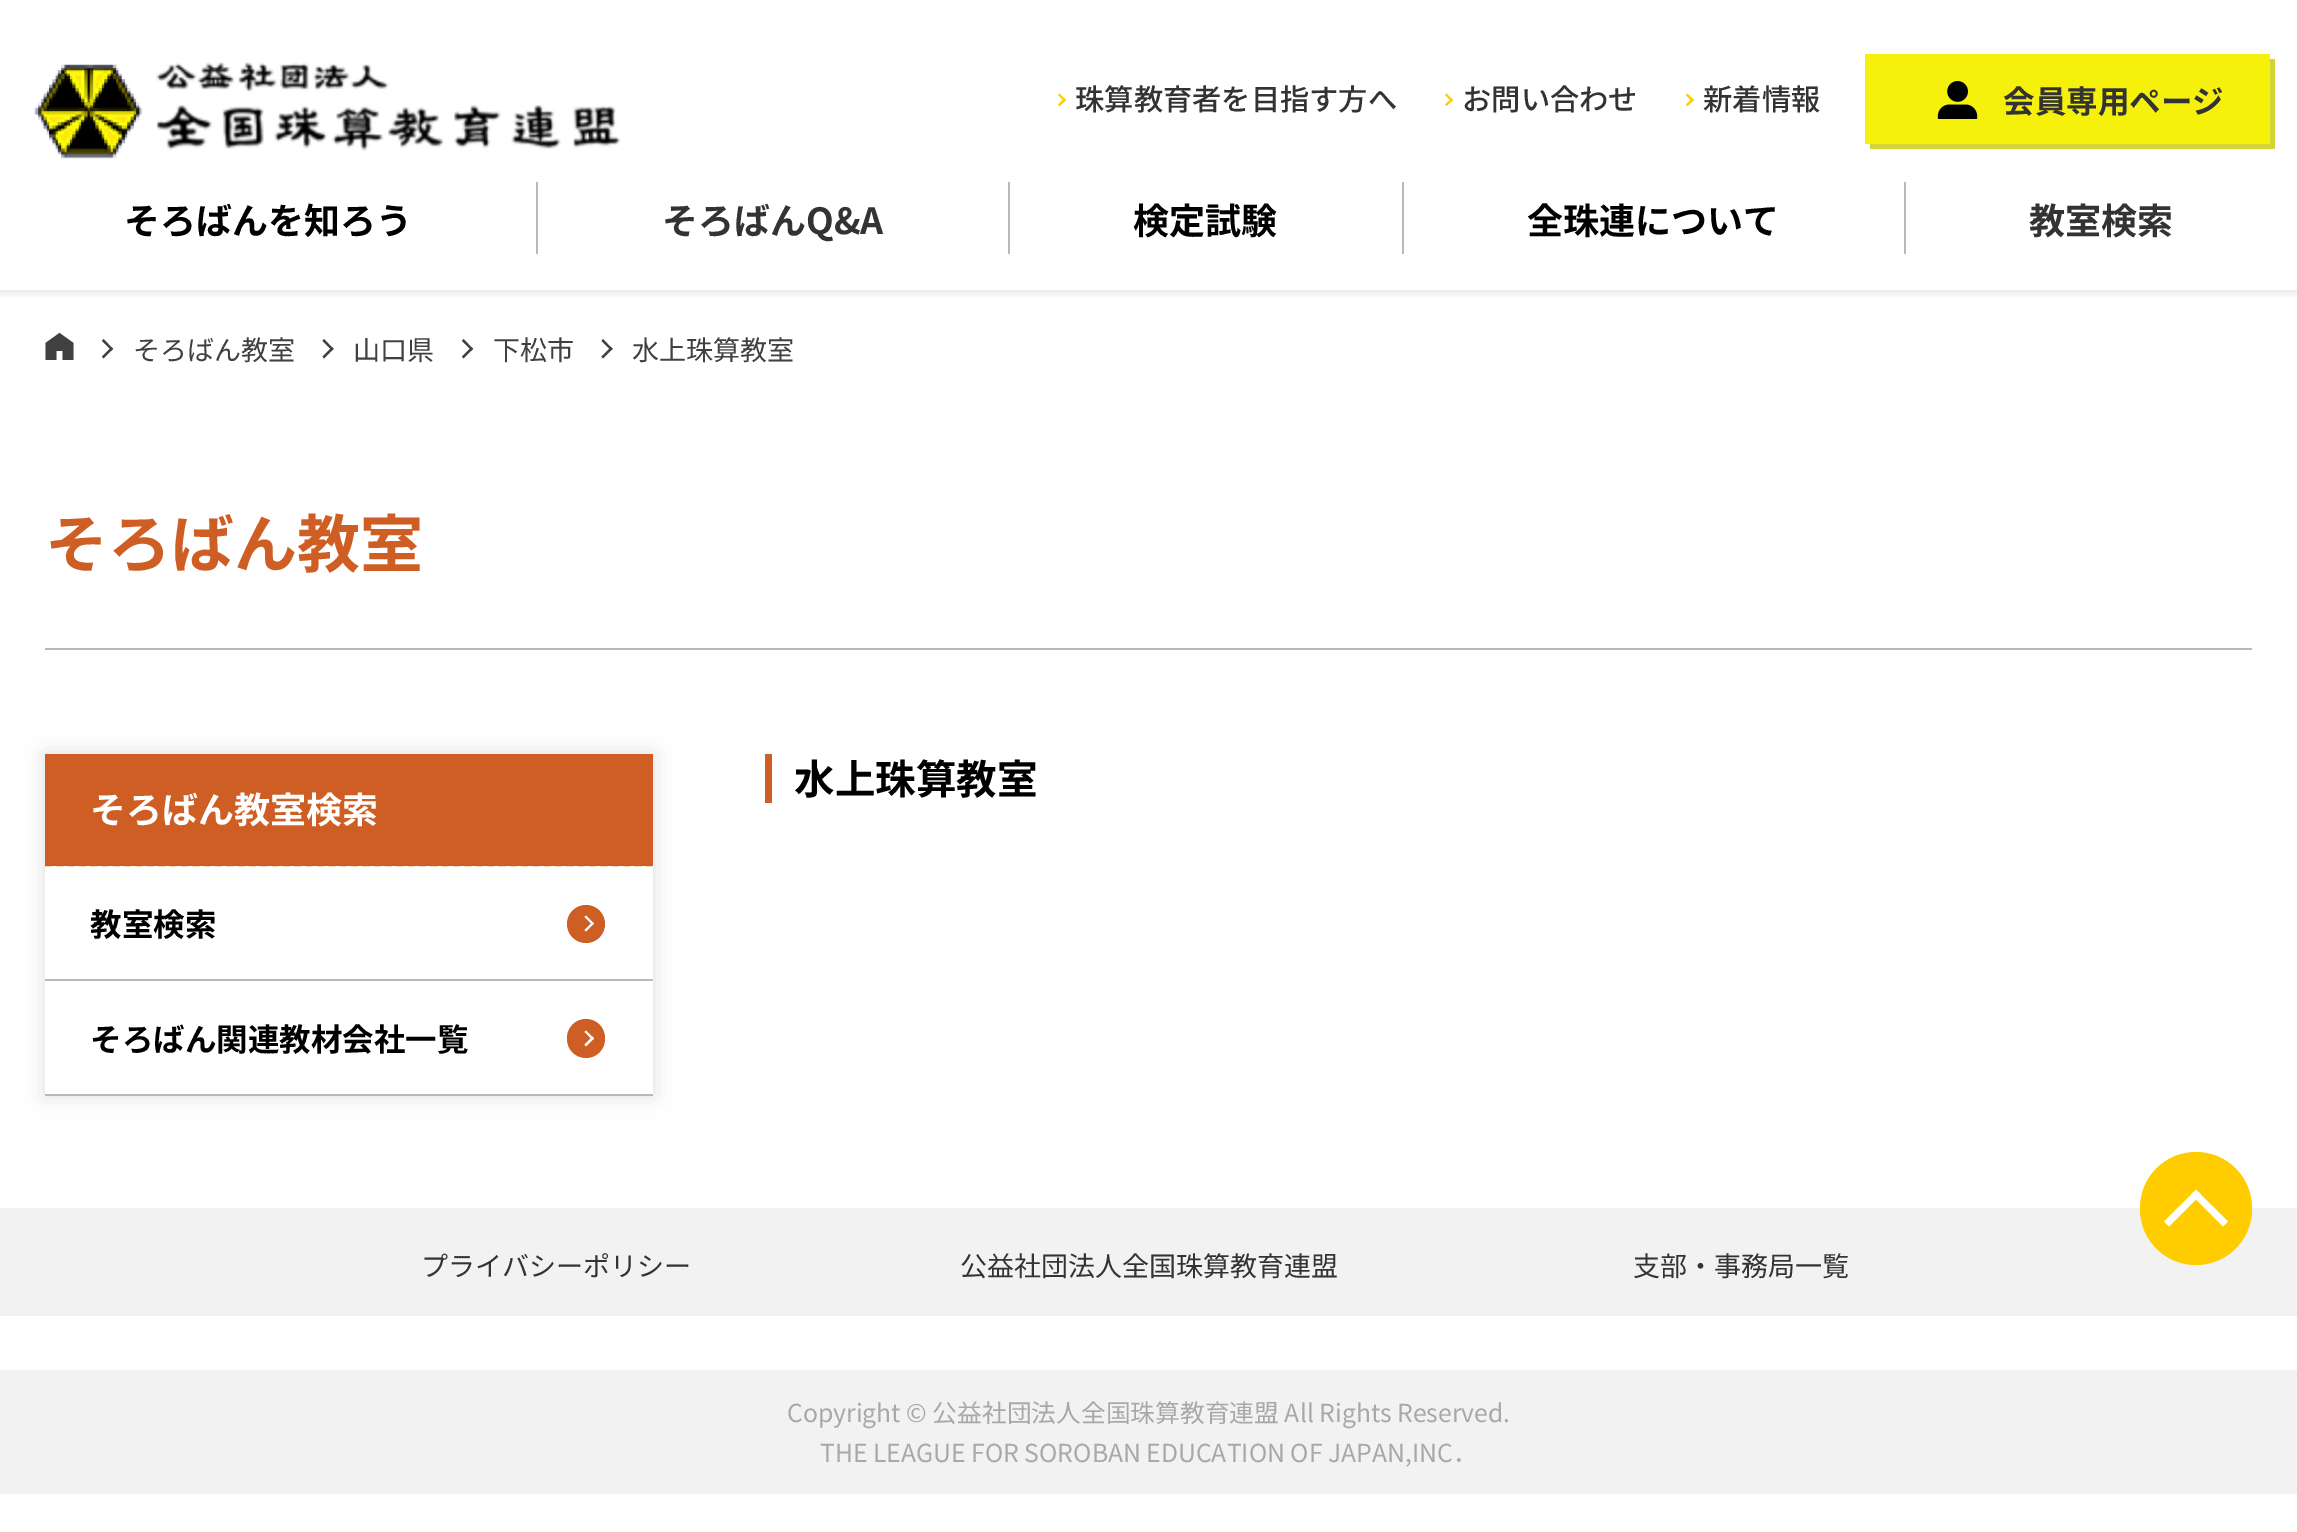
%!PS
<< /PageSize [2297 1532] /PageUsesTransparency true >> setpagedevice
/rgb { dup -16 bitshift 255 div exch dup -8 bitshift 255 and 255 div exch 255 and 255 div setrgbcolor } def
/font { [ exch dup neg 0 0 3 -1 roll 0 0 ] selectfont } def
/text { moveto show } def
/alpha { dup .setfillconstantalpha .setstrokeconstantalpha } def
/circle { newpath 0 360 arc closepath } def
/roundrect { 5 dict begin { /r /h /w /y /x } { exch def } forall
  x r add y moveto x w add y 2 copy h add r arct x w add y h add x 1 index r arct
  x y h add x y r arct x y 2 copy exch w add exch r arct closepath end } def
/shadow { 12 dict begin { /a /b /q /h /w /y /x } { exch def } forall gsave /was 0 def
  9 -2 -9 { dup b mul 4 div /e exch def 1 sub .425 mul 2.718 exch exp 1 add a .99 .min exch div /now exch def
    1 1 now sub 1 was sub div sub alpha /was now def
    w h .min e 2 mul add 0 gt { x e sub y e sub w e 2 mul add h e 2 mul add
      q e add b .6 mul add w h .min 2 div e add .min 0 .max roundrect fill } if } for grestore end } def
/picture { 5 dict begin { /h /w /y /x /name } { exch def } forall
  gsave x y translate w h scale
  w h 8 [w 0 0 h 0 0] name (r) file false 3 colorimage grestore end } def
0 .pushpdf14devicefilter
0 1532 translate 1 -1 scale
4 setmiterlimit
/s1 { /NotoSansJP-Medium 29.25 font 16#333333 rgb } def
/s2 { /NotoSansJP-Bold 31.5 font 16#333333 rgb } def
/s3 { /NotoSansJP-Bold 36 font 16#000000 rgb } def
/s4 { /NotoSansJP-Bold 36 font 16#333333 rgb } def
/s5 { /NotoSansJP-Regular 27 font 16#404040 rgb } def
/s6 { /NotoSansJP-Bold 63 font 16#CE5E23 rgb } def
/s7 { /NotoSansJP-Bold 40.5 font 16#000000 rgb } def
/s8 { /NotoSansJP-Bold 36 font 16#FFFFFF rgb } def
/s9 { /NotoSansJP-Bold 31.5 font 16#000000 rgb } def
/s10 { /NotoSansJP-Regular 27 font 16#333333 rgb } def
/s11 { /NotoSansJP-Regular 24.75 font 16#A8A8A8 rgb } def
16#FFFFFF rgb
0 0 2297 1532 rectfill
gsave
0 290 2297 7 rectclip
16#000000 rgb
0 2 2297 291 0 4.5 0.1 shadow
grestore
(pic1.raw) 34 62 587 97 picture
16#FFCC00 rgb
1058 95 moveto 1059.5 93.5 lineto 1066 100 lineto 1064.5 101.5 lineto closepath fill
1058 104.5 moveto 1064.5 98.5 lineto 1066 100 lineto 1059.5 106 lineto closepath fill
s1
(珠算教育者を目指す方へ) 1075 110 text
16#FFCC00 rgb
1445 95 moveto 1446.5 93.5 lineto 1453 100 lineto 1451.5 101.5 lineto closepath fill
1445 104.5 moveto 1451.5 98.5 lineto 1453 100 lineto 1446.5 106 lineto closepath fill
s1
(お問い合わせ) 1462 110 text
16#FFCC00 rgb
1686 95 moveto 1687.5 93.5 lineto 1694 100 lineto 1692 101.5 lineto closepath fill
1686 104.5 moveto 1692 98.5 lineto 1694 100 lineto 1687.5 106 lineto closepath fill
s1
(新着情報) 1703 110 text
16#D3D435 rgb
1870 144 moveto 1870 149 lineto 2275 149 lineto 2275 59 lineto 2270 59 lineto 2270 144 lineto closepath fill
16#F6F10B rgb
1865 54 405 90 rectfill
(pic2.raw) 1937 81 41 38 picture
s2
(会員専用ページ) 2003 113 text
16#B9B9B9 rgb
536 182 2 72 rectfill
s3
(そろばんを知ろう) 124 234 text
16#B9B9B9 rgb
1008 182 2 72 rectfill
s4
(そろばんQ&A) 662 234 text
16#B9B9B9 rgb
1402 182 2 72 rectfill
s3
(検定試験) 1133 234 text
16#B9B9B9 rgb
1904 182 2 72 rectfill
s3
(全珠連について) 1527 234 text
s4
(教室検索) 2029 234 text
16#B9B9B9 rgb
45 648 2207 2 rectfill
16#404040 rgb
59.5 333 moveto 45.5 343 lineto 45.5 360 lineto 56.5 360 lineto 56.5 351 lineto 62.5 351 lineto 62.5 360 lineto 73.5 360 lineto 73.5 343 lineto closepath fill
102 341 moveto 103.5 339 lineto 113 349 lineto 111.5 350.5 lineto closepath fill
102 356.5 moveto 111.5 347 lineto 113 349 lineto 103.5 358.5 lineto closepath fill
s5
(そろばん教室) 133 360 text
322.5 341 moveto 324 339 lineto 333.5 349 lineto 332 350.5 lineto closepath fill
322.5 356.5 moveto 332 347 lineto 333.5 349 lineto 324 358.5 lineto closepath fill
(山口県) 353 360 text
462 341 moveto 463.5 339 lineto 473 349 lineto 471.5 350.5 lineto closepath fill
462 356.5 moveto 471.5 347 lineto 473 349 lineto 463.5 358.5 lineto closepath fill
(下松市) 493 360 text
601.5 341 moveto 603 339 lineto 612.5 349 lineto 611 350.5 lineto closepath fill
601.5 356.5 moveto 611 347 lineto 612.5 349 lineto 603 358.5 lineto closepath fill
(水上珠算教室) 632 360 text
s6
(そろばん教室) 45 567 text
765 754 7 49 rectfill
s7
(水上珠算教室) 794 794 text
gsave
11 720 moveto 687 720 lineto 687 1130 lineto 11 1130 lineto closepath 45 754 moveto 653 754 lineto 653 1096 lineto 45 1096 lineto closepath eoclip newpath
16#DDDDDD rgb
45 754 608 342 0 11 1 shadow
grestore
16#CE5E23 rgb
45 754 608 112 rectfill
2.2 setlinewidth
[6.75 4.59] 0 setdash
45 865 moveto 652.5 865 lineto stroke
s8
(そろばん教室検索) 90 823 text
16#B9B9B9 rgb
45 979 608 2 rectfill
s9
(教室検索) 90 936 text
16#CE5E23 rgb
586 924 19 circle fill
16#FFFFFF rgb
584.5 917 moveto 586 915.5 lineto 594 923.5 lineto 592.5 925 lineto closepath fill
584.5 930 moveto 592.5 922 lineto 594 923.5 lineto 586 931.5 lineto closepath fill
16#B9B9B9 rgb
45 1094 608 2 rectfill
s9
(そろばん関連教材会社一覧) 90 1051 text
16#CE5E23 rgb
567 1019 38 39 19 roundrect fill
16#FFFFFF rgb
584.5 1032 moveto 586 1030.5 lineto 594 1038.5 lineto 592.5 1040 lineto closepath fill
584.5 1044.5 moveto 592.5 1036.5 lineto 594 1038.5 lineto 586 1046.5 lineto closepath fill
16#F2F2F2 rgb
0 1208 2297 108 rectfill
s10
(プライバシーポリシー) 421 1276 text
(公益社団法人全国珠算教育連盟) 960 1276 text
(支部・事務局一覧) 1633 1276 text
16#FFCC00 rgb
2140 1152 112 113 56 roundrect fill
16#FFFFFF rgb
2169 1226.5 moveto 2164 1221.5 lineto 2196 1190 lineto 2201 1194.5 lineto closepath fill
2223 1226.5 moveto 2191 1194.5 lineto 2196 1190 lineto 2228 1221.5 lineto closepath fill
16#F2F2F2 rgb
0 1370 2297 124 rectfill
s11
(Copyright © 公益社団法人全国珠算教育連盟 All Rights Reserved.) 787 1422 text
(THE LEAGUE FOR SOROBAN EDUCATION OF JAPAN,INC．) 820 1462 text
.poppdf14devicefilter showpage
